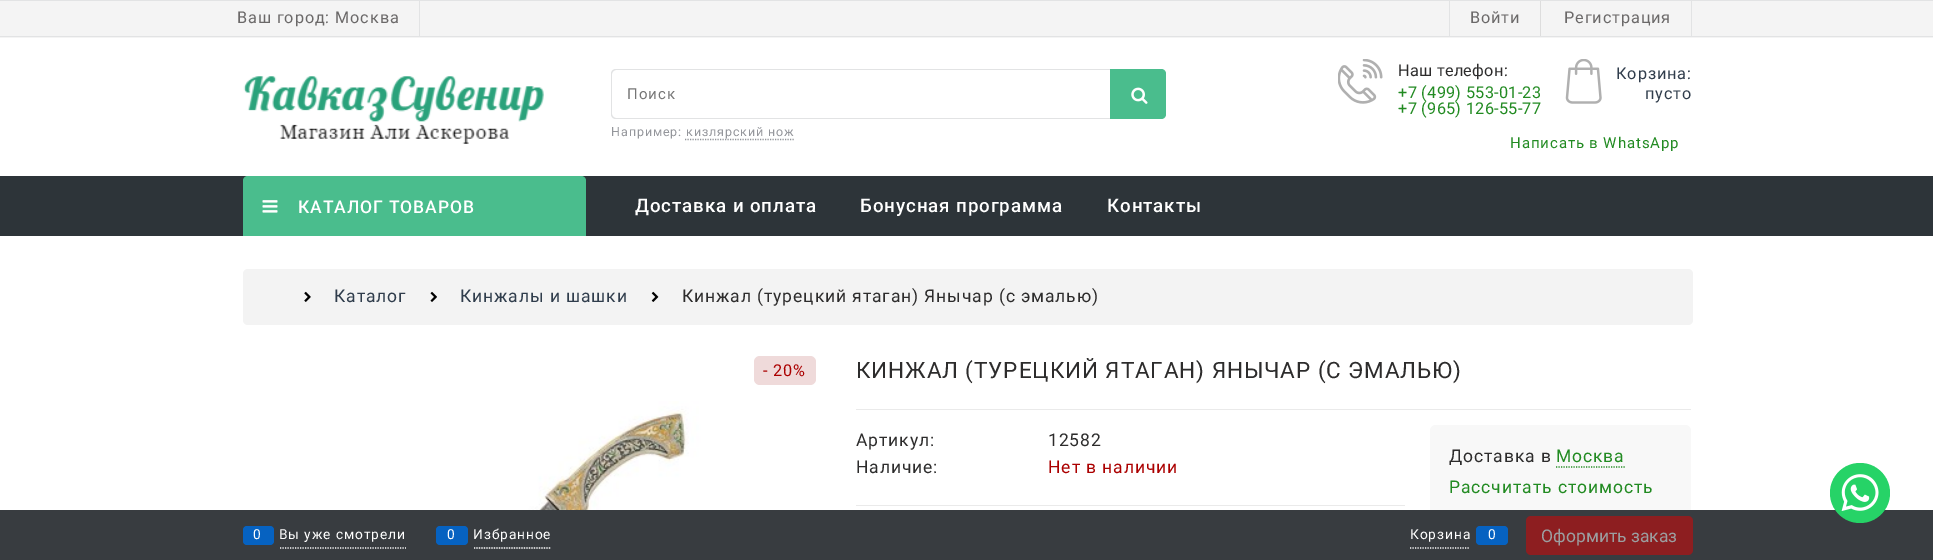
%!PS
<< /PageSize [1933 560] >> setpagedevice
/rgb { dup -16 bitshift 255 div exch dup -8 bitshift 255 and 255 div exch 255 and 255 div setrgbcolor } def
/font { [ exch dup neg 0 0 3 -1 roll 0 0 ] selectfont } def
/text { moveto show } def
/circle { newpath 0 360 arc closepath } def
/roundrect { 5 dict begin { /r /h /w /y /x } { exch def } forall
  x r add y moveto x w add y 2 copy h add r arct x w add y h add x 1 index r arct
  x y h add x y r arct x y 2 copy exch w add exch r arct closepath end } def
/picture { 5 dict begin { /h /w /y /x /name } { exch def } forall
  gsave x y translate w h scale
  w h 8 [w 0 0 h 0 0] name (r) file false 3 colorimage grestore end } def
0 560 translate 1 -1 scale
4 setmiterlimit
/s1 { /Roboto-Regular 17.5 font 16#9C9EA0 rgb } def
16#FFFFFF rgb
0 0 1933 560 rectfill
16#F4F4F4 rgb
0 1 1933 37 rectfill
16#E2E3E4 rgb
0 0 1933 1 rectfill
0 36 1933 1 rectfill
419 1 1 35 rectfill
/Roboto-Regular 16.25 font
16#6B6969 rgb
237 23 moveto 0.9 0 (Ваш город: Москва) ashow
16#E2E3E4 rgb
1691 1 1 35 rectfill
1449 1 1 35 rectfill
16#DDDDDD rgb
1540 1 1 35 rectfill
16#6B6969 rgb
1470 23 moveto 0.9 0 (Войти) ashow
1564 23 moveto 0.9 0 (Регистрация) ashow
(pic1.raw) 243 76 301 68 picture
16#E2E3E4 rgb
616 69 moveto 1110 69 lineto 1110 119 lineto 616 119 lineto 613 119 611 117 611 114 curveto 611 74 lineto 611 71 613 69 616 69 curveto closepath 616 70 moveto 1110 70 lineto 1110 118 lineto 616 118 lineto 614 118 612 116 612 114 curveto 612 74 lineto 612 72 614 70 616 70 curveto closepath eofill
/Roboto-Regular 15 font
16#757575 rgb
627 99 moveto 1 0 (Поиск) ashow
/Roboto-Regular 12.5 font
16#94969B rgb
611 136 moveto 0.9 0 (Например:) ashow
1.2 setlinewidth
[1.25 1.25] 0 setdash
685 139.5 moveto 794 139.5 lineto stroke
686 136 moveto 0.9 0 (кизлярский нож) ashow
16#4ABD8D rgb
1110 69 moveto 1161 69 lineto 1164 69 1166 71 1166 74 curveto 1166 114 lineto 1166 117 1164 119 1161 119 curveto 1110 119 lineto closepath fill
(pic2.raw) 1131 87 17 17 picture
(pic3.raw) 1338 59 45 45 picture
/Roboto-Regular 16.25 font
16#2D2C2C rgb
1398 76 moveto 0.3 0 (Наш телефон:) ashow
16#228B22 rgb
1398 98 moveto 0.3 0 (+7 \(499\) 553-01-23) ashow
1398 114 moveto 0.3 0 (+7 \(965\) 126-55-77) ashow
(pic4.raw) 1565 59 37 45 picture
16#303D4C rgb
1616 79 moveto 0.9 0 (Корзина:) ashow
1645 99 moveto 0.9 0 (пусто) ashow
/Roboto-Regular 15 font
16#228B22 rgb
1510 148 moveto 0.9 0 (Написать в WhatsApp) ashow
16#2D3439 rgb
0 176 1933 60 rectfill
16#4ABD8D rgb
248 176 moveto 581 176 lineto 584 176 586 178 586 181 curveto 586 236 lineto 243 236 lineto 243 181 lineto 243 178 245 176 248 176 curveto closepath fill
(pic5.raw) 262 200 16 13 picture
/Roboto-Medium 17.5 font
16#FFFFFF rgb
298 213 moveto 0.9 0 (КАТАЛОГ ТОВАРОВ) ashow
/Roboto-Medium 18.75 font
635 212 moveto 0.9 0 (Доставка и оплата) ashow
860 212 moveto 0.9 0 (Бонусная программа) ashow
1107 212 moveto 0.9 0 (Контакты) ashow
16#F3F3F3 rgb
243 269 1450 56 5 roundrect fill
(pic6.raw) 304 291 7 11 picture
/Roboto-Regular 17.5 font
16#303D4C rgb
334 302 moveto 0.9 0 (Каталог) ashow
(pic7.raw) 430 291 7 11 picture
460 302 moveto 0.9 0 (Кинжалы и шашки) ashow
(pic8.raw) 651 291 8 11 picture
16#2D2C2C rgb
682 302 moveto 0.9 0 (Кинжал \(турецкий ятаган\) Янычар \(с эмалью\)) ashow
16#EFDADA rgb
754 356 62 29 6 roundrect fill
/Roboto-Regular 16.25 font
16#AB0000 rgb
763 376 moveto 0.9 0 (- 20%) ashow
(pic9.raw) 484 401 285 109 picture
16#EAEAEA rgb
856 409 835 1 rectfill
/Roboto-Regular 22.5 font
16#2D2C2C rgb
856 378 moveto 0.9 0 (КИНЖАЛ \(ТУРЕЦКИЙ ЯТАГАН\) ЯНЫЧАР \(С ЭМАЛЬЮ\)) ashow
16#EAEAEA rgb
856 505 549 1 rectfill
/Roboto-Regular 17.5 font
16#2D2C2C rgb
856 446 moveto 0.9 0 (Артикул:) ashow
1048 446 moveto 0.9 0 (12582) ashow
856 473 moveto 0.9 0 (Наличие:) ashow
16#AB0000 rgb
1048 473 moveto 0.9 0 (Нет в наличии) ashow
16#F8F8F8 rgb
1430 425 261 119 6 roundrect fill
16#2D2C2C rgb
1449 462 moveto 0.9 0 (Доставка в) ashow
16#228B22 rgb
1556 462 moveto 0.9 0 (Москва) ashow
1556 467 moveto 1625 467 lineto stroke
1449 493 moveto 0.9 0 (Рассчитать стоимость) ashow
16#383C40 rgb
0 510 1933 50 rectfill
16#FFFFFF rgb
280 548 moveto 406 548 lineto stroke
16#0662C1 rgb
243 526 31 19 4 roundrect fill
/Roboto-Regular 13.75 font
16#FFFFFF rgb
253 539 moveto 0.9 0 (0) ashow
279 539 moveto 0.9 0 (Вы уже смотрели) ashow
474 548 moveto 551 548 lineto stroke
16#0662C1 rgb
436 526 32 19 4 roundrect fill
16#FFFFFF rgb
447 539 moveto 0.9 0 (0) ashow
473 539 moveto 0.9 0 (Избранное) ashow
1410 548 moveto 1470 548 lineto stroke
1410 539 moveto 0.9 0 (Корзина) ashow
16#0662C1 rgb
1476 526 32 19 4 roundrect fill
16#FFFFFF rgb
1488 539 moveto 0.9 0 (0) ashow
16#8D1E20 rgb
1526 516 167 39 5 roundrect fill
s1
(Оформить заказ) 1541 542 text
16#26D367 rgb
1860 493 30 circle fill
(pic10.raw) 1841 474 38 37 picture
showpage
